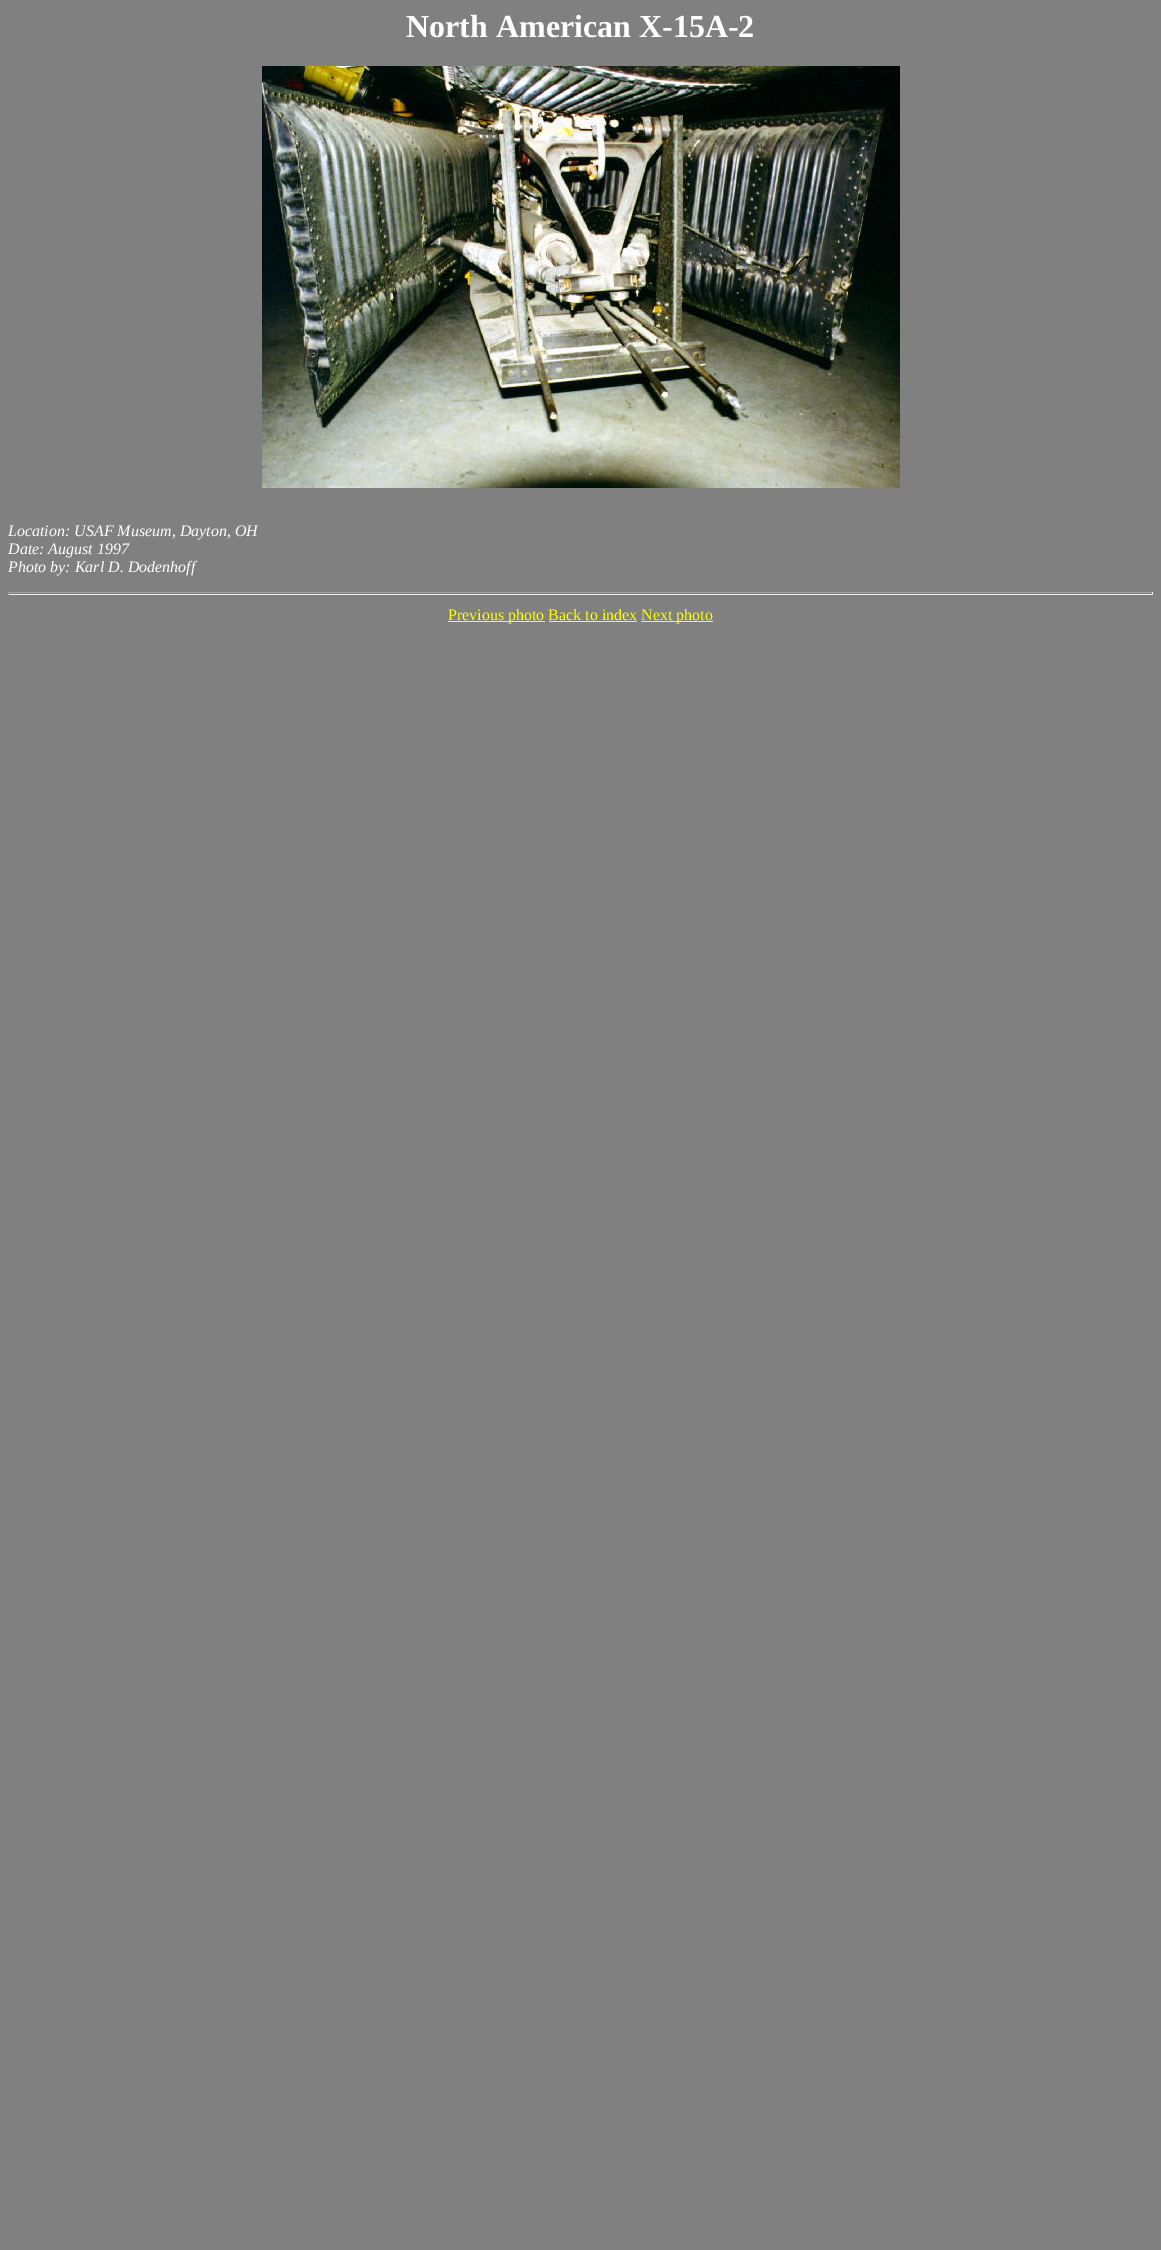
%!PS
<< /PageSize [1161 2250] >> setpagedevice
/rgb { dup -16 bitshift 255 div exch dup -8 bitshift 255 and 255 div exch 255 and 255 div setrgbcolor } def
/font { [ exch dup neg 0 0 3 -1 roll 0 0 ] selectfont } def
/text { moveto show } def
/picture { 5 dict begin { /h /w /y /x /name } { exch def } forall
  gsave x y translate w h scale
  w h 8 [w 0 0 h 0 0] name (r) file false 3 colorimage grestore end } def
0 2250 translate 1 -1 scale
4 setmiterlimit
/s1 { /LiberationSerif-Bold 32 font 16#FFFFFF rgb } def
/s2 { /LiberationSerif-Italic 16 font 16#FFFFFF rgb } def
/s3 { /LiberationSerif-Regular 16 font 16#FFFF00 rgb } def
16#808080 rgb
0 0 1161 2250 rectfill
s1
(North American X-15A-2) 406 37 text
(pic1.raw) 262 66 638 422 picture
s2
(Location: USAF Museum, Dayton, OH) 8 536 text
(Date: August 1997) 8 554 text
(Photo by: Karl D. Dodenhoff) 8 572 text
16#9F9F9F rgb
8 592 1145 1 rectfill
16#EEEEEE rgb
1152 592 1 3 rectfill
8 594 1145 1 rectfill
16#9F9F9F rgb
8 592 1 3 rectfill
16#FFFF00 rgb
448 621 97 1 rectfill
s3
(Previous photo Back to index) 448 620 text
641 621 72 1 rectfill
(Next photo) 641 620 text
549 621 88 1 rectfill
showpage
